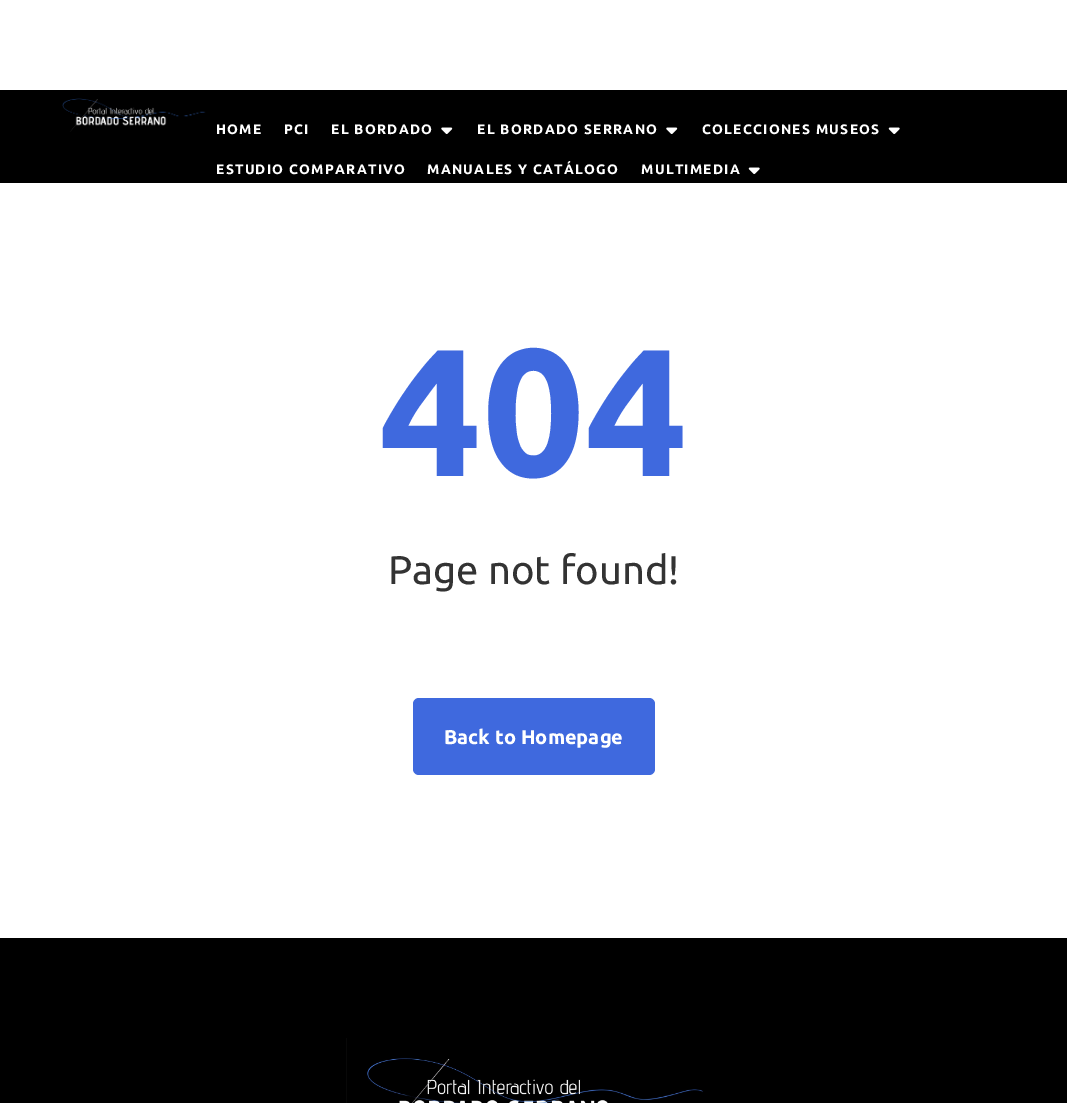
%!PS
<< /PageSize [1067 1103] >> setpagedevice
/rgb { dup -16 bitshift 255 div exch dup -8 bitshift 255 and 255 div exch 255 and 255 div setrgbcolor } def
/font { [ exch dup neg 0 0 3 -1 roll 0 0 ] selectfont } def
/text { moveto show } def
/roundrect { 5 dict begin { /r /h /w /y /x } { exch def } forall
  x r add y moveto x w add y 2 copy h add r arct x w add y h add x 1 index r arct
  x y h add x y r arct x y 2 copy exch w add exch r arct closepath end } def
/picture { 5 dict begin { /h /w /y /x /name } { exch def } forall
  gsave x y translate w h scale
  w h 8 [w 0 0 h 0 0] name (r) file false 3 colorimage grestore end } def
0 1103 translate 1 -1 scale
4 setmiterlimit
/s1 { /Ubuntu-Bold 181 font 16#3F69DE rgb } def
/s2 { /Ubuntu-Regular 40 font 16#333333 rgb } def
/s3 { /Ubuntu-Bold 20 font 16#FFFFFF rgb } def
16#FFFFFF rgb
0 0 1067 1103 rectfill
16#000000 rgb
0 90 1067 93 rectfill
(pic1.raw) 62 98 144 34 picture
/Ubuntu-Bold 13.75 font
16#FFFFFF rgb
216 134 moveto 1.25 0 (HOME) ashow
284 134 moveto 1.25 0 (PCI) ashow
331 134 moveto 1.25 0 (EL BORDADO) ashow
(pic2.raw) 441 127 12 7 picture
477 134 moveto 1.25 0 (EL BORDADO SERRANO) ashow
(pic2.raw) 666 127 12 7 picture
702 134 moveto 1.25 0 (COLECCIONES MUSEOS) ashow
(pic3.raw) 888 127 12 7 picture
216 174 moveto 1.25 0 (ESTUDIO COMPARATIVO) ashow
427 174 moveto 1.25 0 (MANUALES Y CATÁLOGO) ashow
641 174 moveto 1.25 0 (MULTIMEDIA) ashow
(pic3.raw) 748 167 12 7 picture
s1
(404) 379 476 text
s2
(Page not found!) 388 584 text
16#3F69DE rgb
413 698 242 77 6 roundrect fill
s3
(Back to Homepage) 444 744 text
16#000000 rgb
0 938 1067 165 rectfill
(pic4.raw) 346 1038 375 65 picture
showpage
